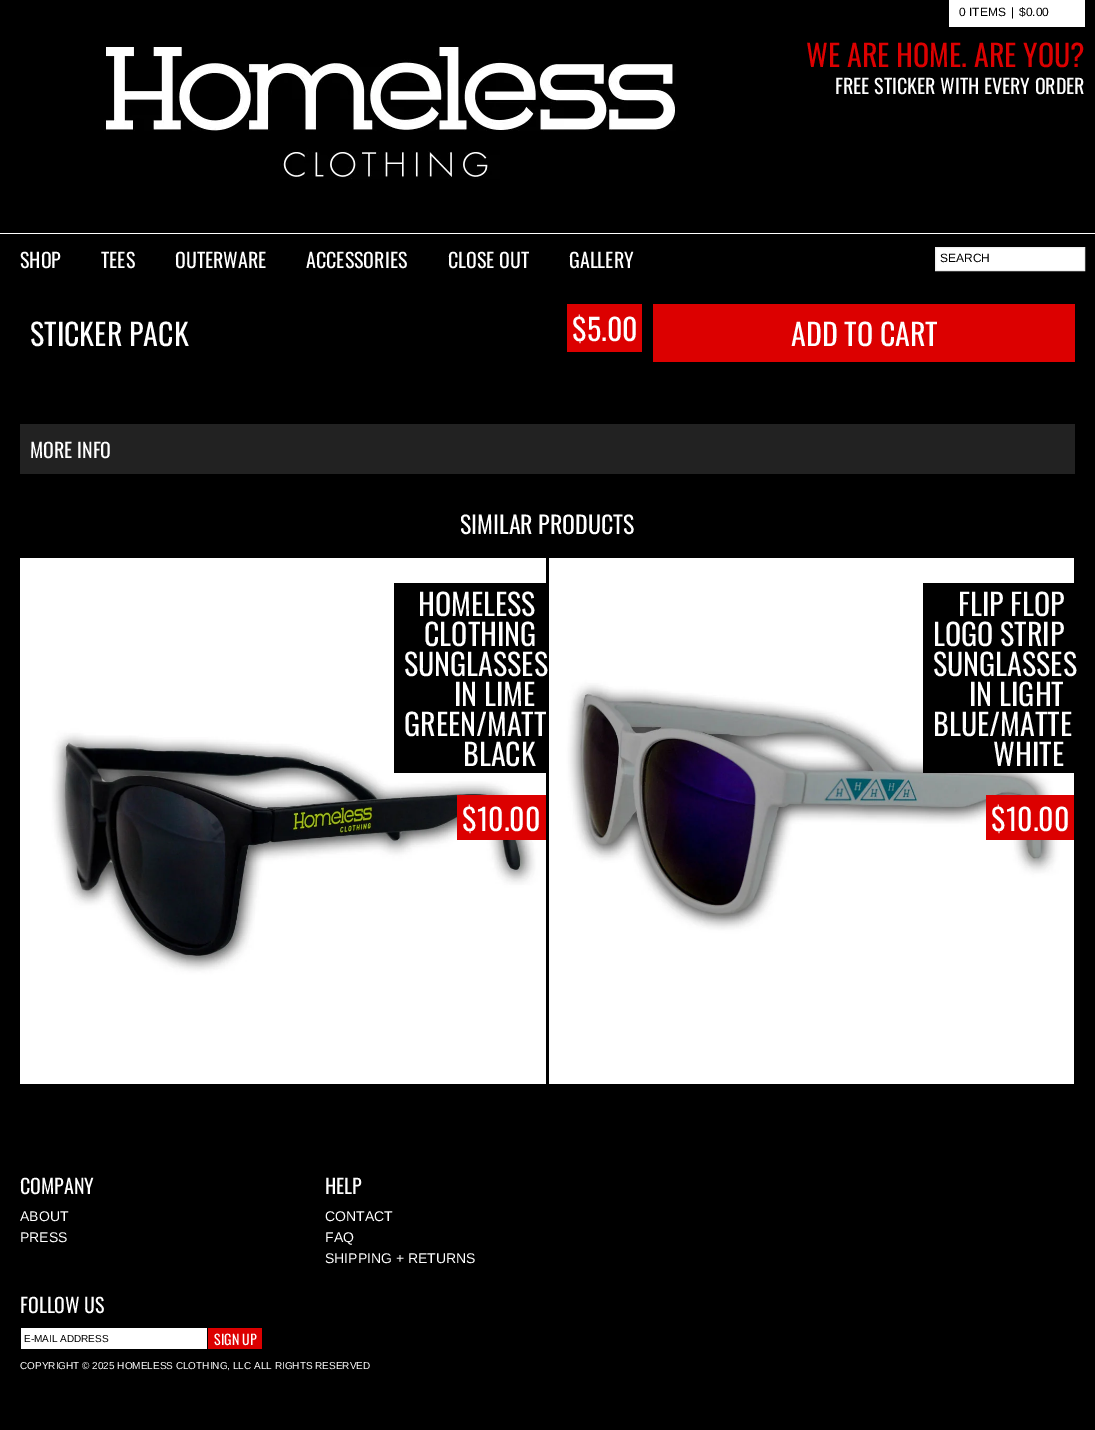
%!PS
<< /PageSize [1095 1430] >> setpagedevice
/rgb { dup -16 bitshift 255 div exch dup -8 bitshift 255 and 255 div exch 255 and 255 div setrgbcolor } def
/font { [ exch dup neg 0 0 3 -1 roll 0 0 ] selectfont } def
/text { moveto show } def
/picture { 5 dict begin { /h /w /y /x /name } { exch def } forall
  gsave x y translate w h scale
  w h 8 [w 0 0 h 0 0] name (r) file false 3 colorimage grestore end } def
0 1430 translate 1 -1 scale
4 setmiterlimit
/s1 { /LiberationSans-Regular 12 font 16#000000 rgb } def
/s2 { /Oswald-Regular 30 font 16#DC0000 rgb } def
/s3 { /Oswald-Regular 20 font 16#FFFFFF rgb } def
/s4 { /Oswald-Regular 30 font 16#FFFFFF rgb } def
/s5 { /Oswald-Regular 24 font 16#FFFFFF rgb } def
/s6 { /LiberationSans-Regular 14 font 16#FFFFFF rgb } def
/s7 { /LiberationSans-Regular 10 font 16#000000 rgb } def
/s8 { /Oswald-Regular 14 font 16#FFFFFF rgb } def
/s9 { /LiberationSans-Regular 10 font 16#FFFFFF rgb } def
16#000000 rgb
0 0 1095 1430 rectfill
16#FFFFFF rgb
949 0 136 27 rectfill
s1
(0 ITEMS) 959 16 text
(|) 1011 16 text
($0.00) 1019 16 text
(pic1.raw) 104 47 572 132 picture
s2
(WE ARE HOME. ARE YOU?) 806 67 text
s3
(FREE STICKER WITH EVERY ORDER) 835 94 text
0 233 1095 1 rectfill
(SHOP) 20 268 text
(TEES) 101 268 text
(OUTERWARE) 175 268 text
(ACCESSORIES) 306 268 text
(CLOSE OUT) 448 268 text
(GALLERY) 569 268 text
935.5 247.5 moveto 1084.5 247.5 lineto 1084.5 270.5 lineto 935.5 270.5 lineto closepath gsave fill grestore
16#EEEEEE rgb
stroke
s1
(SEARCH) 940 262 text
s4
(STICKER PACK) 30 346 text
16#DC0000 rgb
567 304 75 48 rectfill
s4
($5.00) 572 341 text
16#DC0000 rgb
653 304 422 58 rectfill
s4
(ADD TO CART) 791 346 text
16#222222 rgb
20 424 1055 50 rectfill
s3
(MORE INFO) 30 458 text
s5
(SIMILAR PRODUCTS) 460 534 text
(pic2.raw) 20 558 526 526 picture
16#000000 rgb
394 583 152 190 rectfill
s4
(HOMELESS) 418 616 text
(CLOTHING) 424 646 text
(SUNGLASSES) 404 676 text
(IN LIME) 454 706 text
(GREEN/MATT) 404 736 text
(BLACK) 463 766 text
16#DC0000 rgb
457 795 89 45 rectfill
s4
($10.00) 462 831 text
(pic3.raw) 549 558 525 526 picture
16#000000 rgb
923 583 151 190 rectfill
s4
(FLIP FLOP) 958 616 text
(LOGO STRIP) 933 646 text
(SUNGLASSES) 933 676 text
(IN LIGHT) 969 706 text
(BLUE/MATTE) 933 736 text
(WHITE) 993 766 text
16#DC0000 rgb
986 795 88 45 rectfill
s4
($10.00) 991 831 text
s3
(COMPANY) 20 1194 text
s6
(ABOUT) 20 1221 text
(PRESS) 20 1242 text
s3
(HELP) 325 1194 text
s6
(CONTACT) 325 1221 text
(FAQ) 325 1242 text
(SHIPPING + RETURNS) 325 1263 text
s3
(FOLLOW US) 20 1313 text
21 1328 186 21 rectfill
s7
(E-MAIL ADDRESS) 24 1342 text
16#DC0000 rgb
208 1328 54 21 rectfill
s8
(SIGN UP) 214 1345 text
s9
(COPYRIGHT © 2025 HOMELESS CLOTHING, LLC ALL RIGHTS RESERVED) 20 1369 text
showpage
